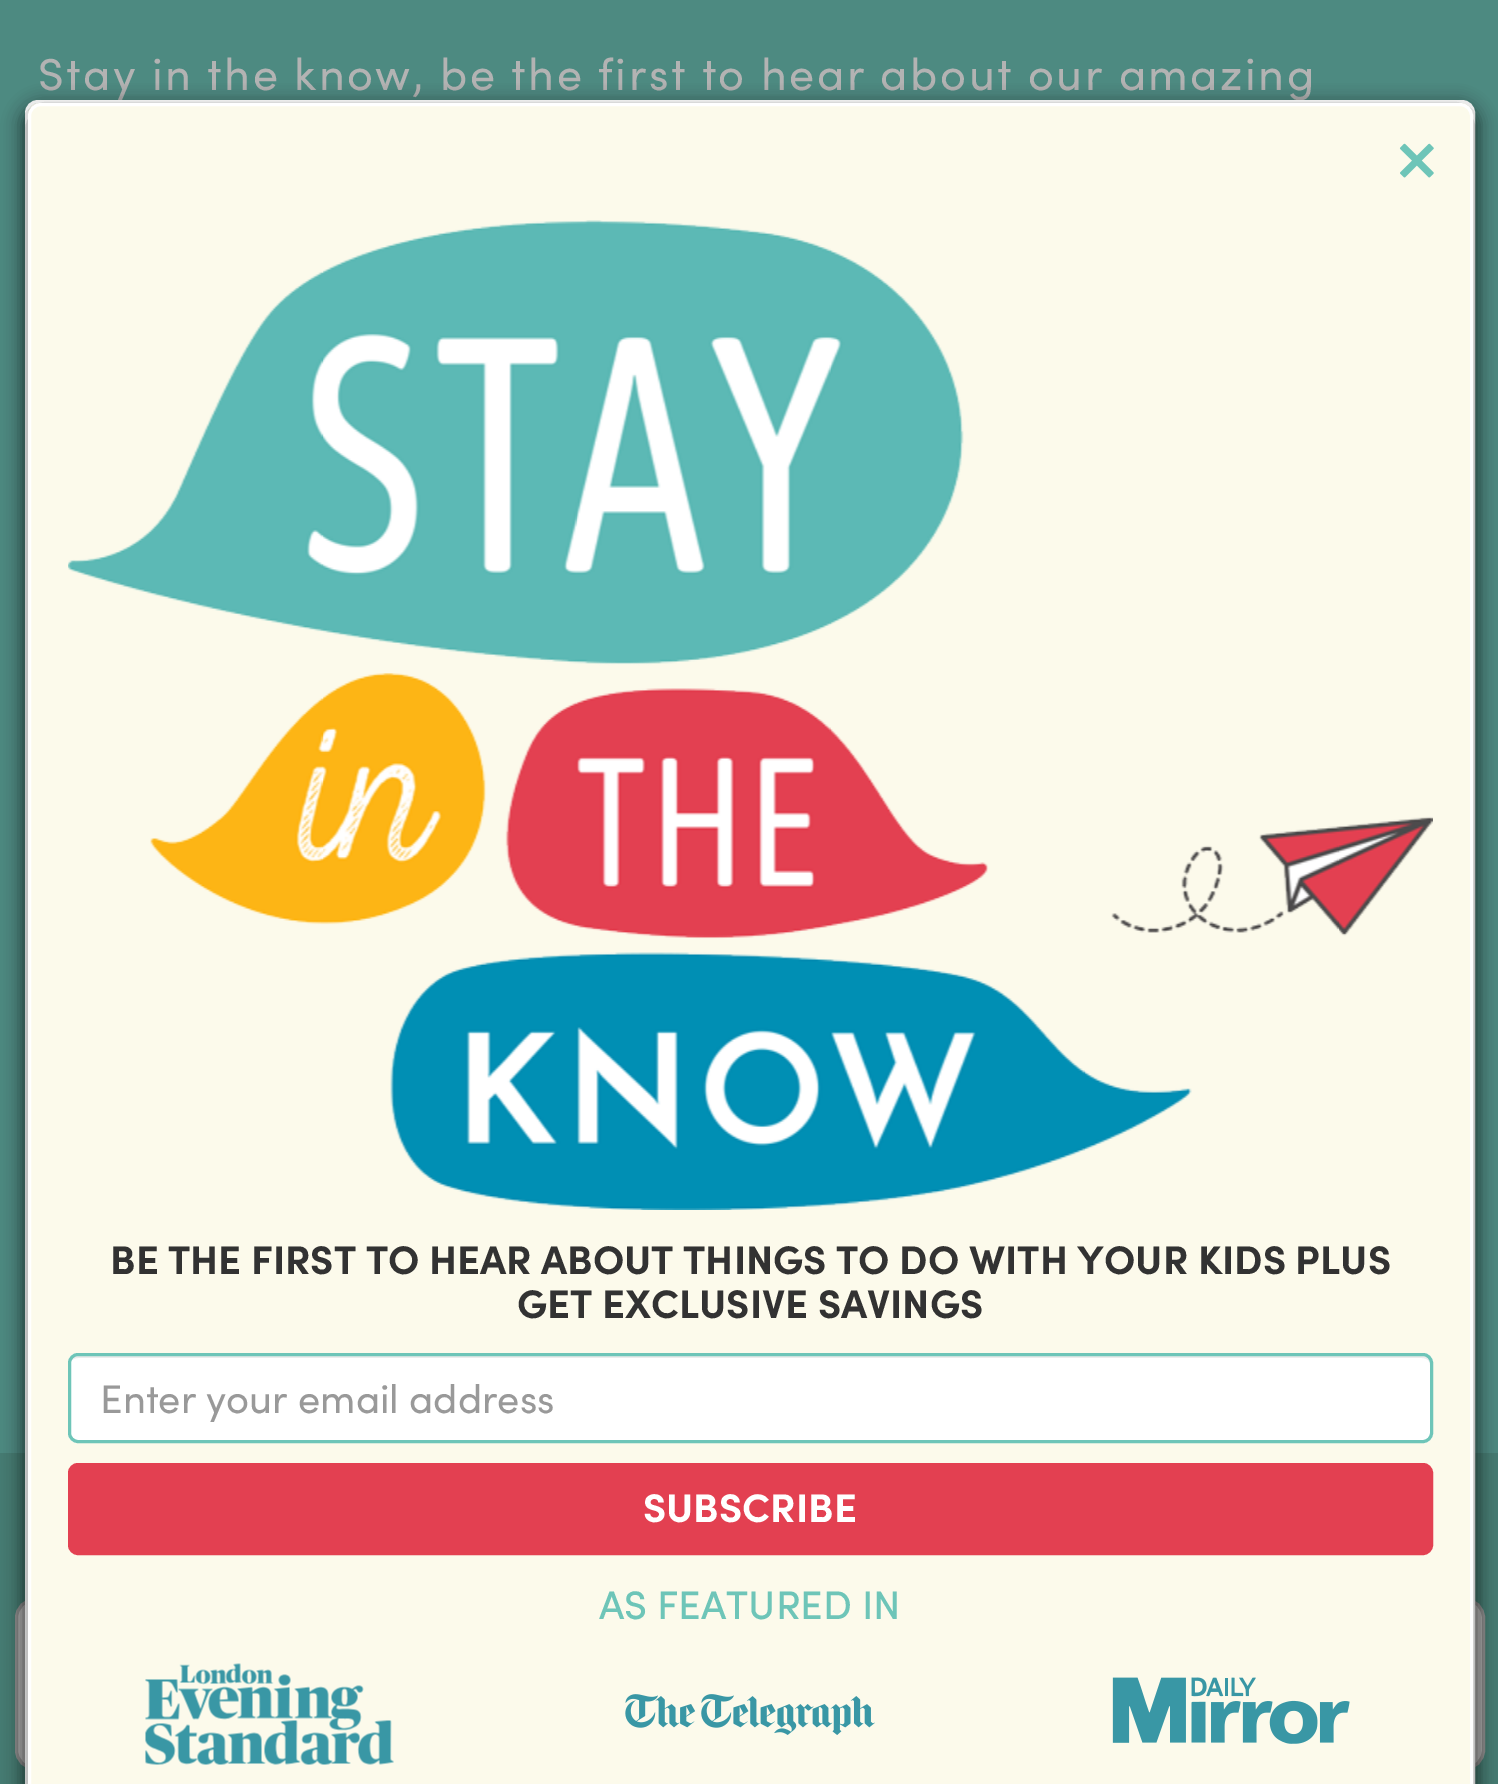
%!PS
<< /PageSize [1498 1784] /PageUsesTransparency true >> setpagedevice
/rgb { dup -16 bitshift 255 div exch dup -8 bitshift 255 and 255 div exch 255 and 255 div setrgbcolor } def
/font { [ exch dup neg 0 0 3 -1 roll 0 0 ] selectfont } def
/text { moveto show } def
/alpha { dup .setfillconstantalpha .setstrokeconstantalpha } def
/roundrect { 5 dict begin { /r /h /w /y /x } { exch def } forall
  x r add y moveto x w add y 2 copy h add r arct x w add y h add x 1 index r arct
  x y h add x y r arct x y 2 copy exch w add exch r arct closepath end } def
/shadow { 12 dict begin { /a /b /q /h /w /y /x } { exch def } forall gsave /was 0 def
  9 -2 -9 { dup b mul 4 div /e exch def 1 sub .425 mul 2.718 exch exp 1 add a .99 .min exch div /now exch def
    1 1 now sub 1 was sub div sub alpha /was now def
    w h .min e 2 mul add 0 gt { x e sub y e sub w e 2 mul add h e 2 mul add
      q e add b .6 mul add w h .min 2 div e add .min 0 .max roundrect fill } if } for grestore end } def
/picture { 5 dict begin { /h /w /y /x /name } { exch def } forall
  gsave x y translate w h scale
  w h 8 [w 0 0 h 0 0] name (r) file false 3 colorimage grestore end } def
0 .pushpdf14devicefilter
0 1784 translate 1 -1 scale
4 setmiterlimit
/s1 { /Sofia-Bold 40 font 16#323232 rgb } def
/s2 { /Sofia-Regular 40 font 16#999999 rgb } def
/s3 { /Sofia-Bold 40 font 16#FFFFFF rgb } def
/s4 { /Sofia-Medium 40 font 16#6EC5B8 rgb } def
16#4D8A81 rgb
0 0 1498 1784 rectfill
/Sofia-Regular 45 font
16#B3B3B3 rgb
38 90 moveto 2.5 0 (Stay in the know, be the first to hear about our amazing) ashow
16#467C73 rgb
0 1453 1498 331 rectfill
16#B3B3B3 rgb
16.5 1599.5 1467 169 18.5 roundrect gsave fill grestore
16#8F8F8F rgb
3 setlinewidth
stroke
16#000000 rgb
25 108 1450 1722 13 11 0.5 shadow
16#FCFAEB rgb
38 103 moveto 1463 103 lineto 1468.5 103 1473 107.5 1473 113 curveto 1473 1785 lineto 28 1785 lineto 28 113 lineto 28 107.5 32.5 103 38 103 curveto closepath fill
16#FFFFFF rgb
26.5 101.5 1447 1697 11.5 roundrect stroke
gsave
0 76 moveto 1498 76 lineto 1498 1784 lineto 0 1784 lineto closepath 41 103 moveto 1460 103 lineto 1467 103 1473 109 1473 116 curveto 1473 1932 lineto 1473 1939 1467 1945 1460 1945 curveto 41 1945 lineto 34 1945 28 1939 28 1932 curveto 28 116 lineto 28 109 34 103 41 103 curveto closepath eoclip newpath
16#000000 rgb
28 110 1445 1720 13 11 0.5 shadow
grestore
29.5 104.5 1442 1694 11.5 roundrect stroke
(pic1.raw) 1399 143 35 35 picture
(pic2.raw) 68 220 1365 990 picture
s1
(BE THE FIRST TO HEAR ABOUT THINGS TO DO WITH YOUR KIDS PLUS) 110 1274 text
(GET EXCLUSIVE SAVINGS) 517 1318 text
16#FFFFFF rgb
68 1353 1365 90 10 roundrect fill
16#ECECEC rgb
78 1358 moveto 1422 1358 lineto 1427 1358 1430 1361 1430 1365 curveto 1430 1363 lineto 1430 1359 1426 1355 1422 1355 curveto 78 1355 lineto 74 1355 70 1359 70 1363 curveto 70 1365 lineto 70 1361 73 1358 78 1358 curveto closepath fill
16#6EC5B8 rgb
69.5 1354.5 1362 87 8.5 roundrect stroke
s2
(Enter your email address) 100 1413 text
16#E34051 rgb
69.5 1464.5 1362 89 8.5 roundrect gsave fill grestore
stroke
s3
(SUBSCRIBE) 643 1522 text
s4
(AS FEATURED IN) 599 1619 text
(pic3.raw) 145 1663 249 102 picture
(pic4.raw) 625 1694 250 41 picture
(pic5.raw) 1112 1677 238 67 picture
.poppdf14devicefilter showpage
